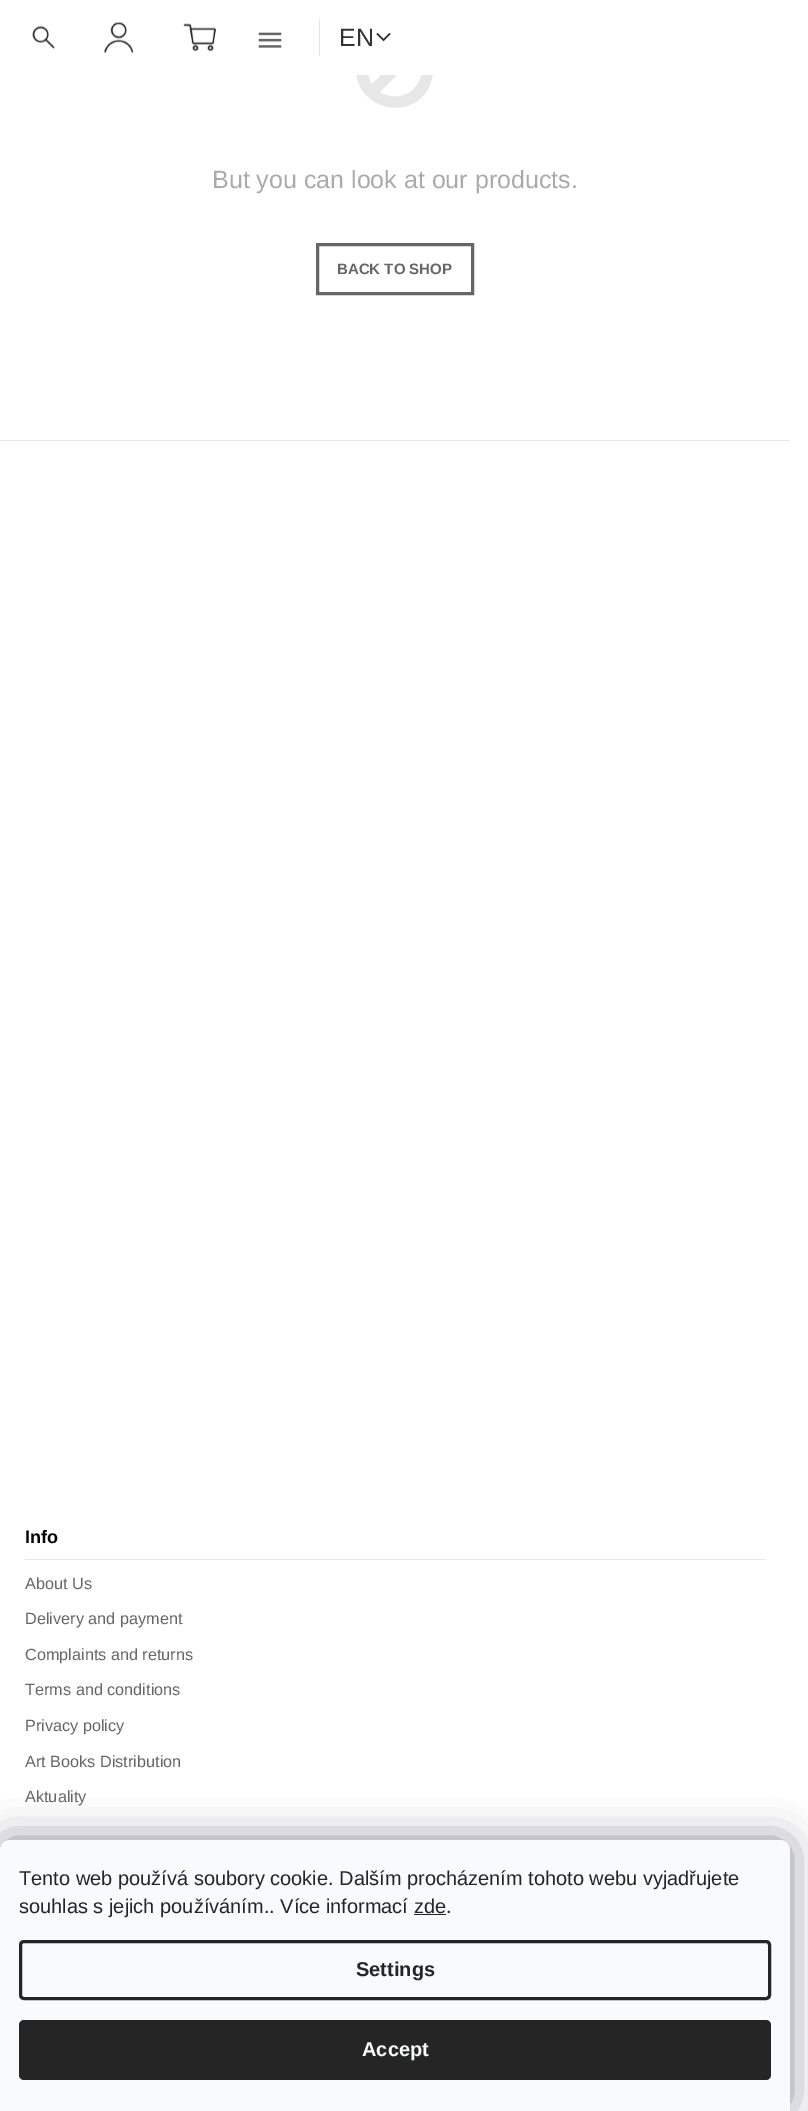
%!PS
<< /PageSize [808 2111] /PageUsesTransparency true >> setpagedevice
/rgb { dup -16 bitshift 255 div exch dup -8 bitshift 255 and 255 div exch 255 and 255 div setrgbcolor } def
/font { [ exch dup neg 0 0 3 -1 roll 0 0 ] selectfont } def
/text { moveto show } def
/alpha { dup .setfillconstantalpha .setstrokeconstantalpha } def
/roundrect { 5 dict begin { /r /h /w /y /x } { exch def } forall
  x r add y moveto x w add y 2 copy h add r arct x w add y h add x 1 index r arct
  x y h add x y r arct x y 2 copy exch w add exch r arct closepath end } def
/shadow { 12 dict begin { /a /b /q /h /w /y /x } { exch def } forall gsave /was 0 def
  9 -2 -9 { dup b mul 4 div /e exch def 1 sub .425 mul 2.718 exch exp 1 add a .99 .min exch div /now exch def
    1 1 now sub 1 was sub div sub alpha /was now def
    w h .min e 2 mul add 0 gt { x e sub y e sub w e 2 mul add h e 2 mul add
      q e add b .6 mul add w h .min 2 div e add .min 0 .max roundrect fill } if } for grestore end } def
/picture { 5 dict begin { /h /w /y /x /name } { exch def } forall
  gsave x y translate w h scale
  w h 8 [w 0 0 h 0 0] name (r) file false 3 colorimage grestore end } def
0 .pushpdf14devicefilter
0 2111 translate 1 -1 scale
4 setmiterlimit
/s1 { /LiberationSans-Regular 25 font 16#333333 rgb } def
/s2 { /LiberationSans-Regular 25 font 16#AAAAAA rgb } def
/s3 { /LiberationSans-Bold 15 font 16#666666 rgb } def
/s4 { /LiberationSans-Bold 18 font 16#000000 rgb } def
/s5 { /LiberationSans-Regular 16.25 font 16#666666 rgb } def
/s6 { /LiberationSans-Regular 20 font 16#252525 rgb } def
/s7 { /LiberationSans-Bold 20 font 16#252525 rgb } def
/s8 { /LiberationSans-Bold 20 font 16#F8FAFB rgb } def
16#FFFFFF rgb
0 0 808 2111 rectfill
16#E7E7E7 rgb
422 69 moveto 422 64 421 59 418 54 curveto 380 92 lineto 398 104 422 91 422 69 curveto closepath 372 84 moveto 410 46 lineto 385 30 356 60 372 84 curveto closepath 433 69 moveto 433 77 431 84 427 91 curveto 406 122 356 107 356 69 curveto 356 32 406 16 427 48 curveto 431 54 433 62 433 69 curveto closepath fill
16#FFFFFF rgb
356 30 77 45 rectfill
(pic1.raw) 32 25 23 24 picture
(pic2.raw) 104 21 30 32 picture
(pic3.raw) 183 23 33 29 picture
(pic4.raw) 258 32 24 16 picture
16#E7E7E7 rgb
319 19 1 37 rectfill
s1
(EN) 339 46 text
(pic5.raw) 376 32 15 10 picture
s2
(But you can look at our products.) 212 188 text
16#666666 rgb
3 setlinewidth
317.5 244.5 155 49 rectstroke
s3
(BACK TO SHOP) 337 274 text
16#E7E7E7 rgb
0 440 790 1 rectfill
25 1559 740 1 rectfill
s4
(Info) 25 1543 text
s5
(About Us) 25 1589 text
(Delivery and payment) 25 1624 text
(Complaints and returns) 25 1660 text
(Terms and conditions) 25 1695 text
(Privacy policy) 25 1731 text
(Art Books Distribution) 25 1767 text
(Aktuality) 25 1802 text
16#1B1939 rgb
0 1840 790 271 10 19 0.5 shadow
16#F8FAFB rgb
10 1840 moveto 780 1840 lineto 785.5 1840 790 1844.5 790 1850 curveto 790 2111 lineto 0 2111 lineto 0 1850 lineto 0 1844.5 4.5 1840 10 1840 curveto closepath fill
s6
(Tento web používá soubory cookie. Dalším procházením tohoto webu vyjadřujete) 19 1885 text
(souhlas s jejich používáním.. Více informací zde.) 19 1913 text
414 1914 32 1 rectfill
20.5 1941.5 749 57 3.5 roundrect stroke
s7
(Settings) 356 1976 text
19 2020 752 60 5 roundrect fill
s8
(Accept) 362 2056 text
.poppdf14devicefilter showpage
